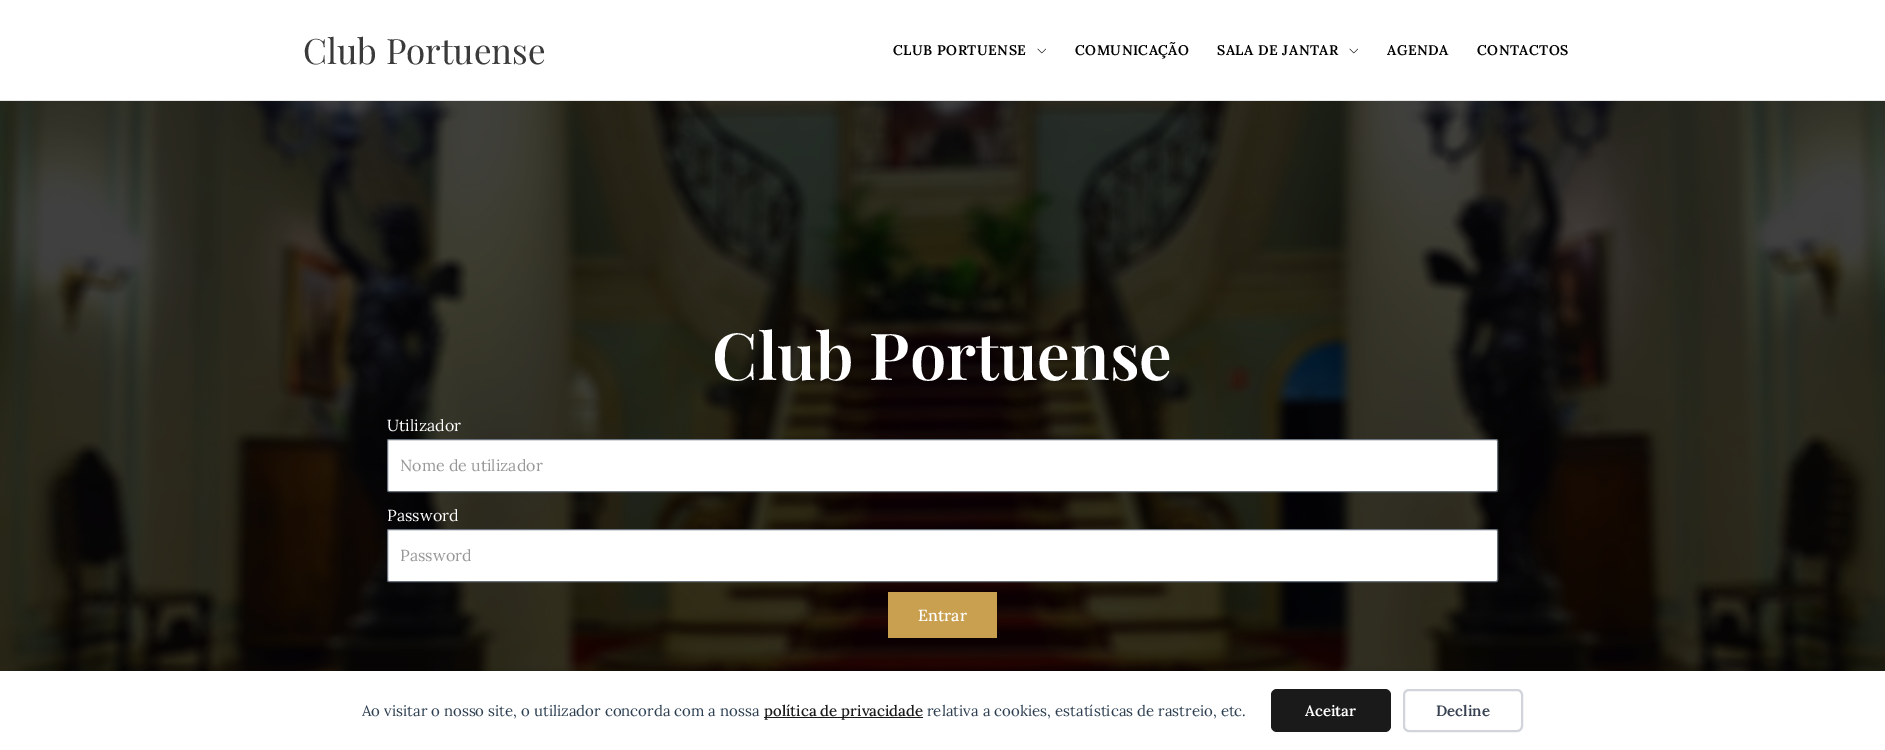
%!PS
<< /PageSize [1885 750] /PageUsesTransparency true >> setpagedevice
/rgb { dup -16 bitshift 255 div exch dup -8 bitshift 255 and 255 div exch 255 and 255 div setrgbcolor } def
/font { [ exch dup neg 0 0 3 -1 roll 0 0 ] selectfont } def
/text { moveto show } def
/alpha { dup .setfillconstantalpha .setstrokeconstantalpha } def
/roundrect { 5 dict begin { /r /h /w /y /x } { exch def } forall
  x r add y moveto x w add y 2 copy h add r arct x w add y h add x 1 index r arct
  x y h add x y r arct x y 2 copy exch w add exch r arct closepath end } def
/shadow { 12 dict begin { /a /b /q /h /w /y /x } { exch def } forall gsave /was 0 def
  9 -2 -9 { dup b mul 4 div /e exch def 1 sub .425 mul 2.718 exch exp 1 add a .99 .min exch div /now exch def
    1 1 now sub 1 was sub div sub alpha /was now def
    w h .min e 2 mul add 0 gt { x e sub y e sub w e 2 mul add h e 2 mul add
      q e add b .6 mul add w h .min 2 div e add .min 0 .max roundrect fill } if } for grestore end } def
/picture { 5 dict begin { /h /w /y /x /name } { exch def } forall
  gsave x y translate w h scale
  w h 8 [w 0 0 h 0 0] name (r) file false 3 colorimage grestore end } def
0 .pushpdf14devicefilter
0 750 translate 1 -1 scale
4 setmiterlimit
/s1 { /PlayfairDisplay-Regular 35 font 16#3A3A3A rgb } def
/s2 { /PlayfairDisplay-SemiBold 65 font 16#FFFFFF rgb } def
/s3 { /Lora-Regular 16 font 16#FFFFFF rgb } def
/s4 { /Lora-Regular 16 font 16#979797 rgb } def
/s5 { /Lora-Medium 16 font 16#FFFFFF rgb } def
/s6 { /Lora-Regular 15 font 16#2C3E50 rgb } def
/s7 { /Lora-Medium 15 font 16#1A1A1A rgb } def
/s8 { /Lora-SemiBold 15 font 16#FFFFFF rgb } def
/s9 { /Lora-SemiBold 15 font 16#374151 rgb } def
16#FFFFFF rgb
0 0 1885 750 rectfill
16#E5E5E5 rgb
0 100 1885 1 rectfill
s1
(Club Portuense) 303 64 text
/Lora-SemiBold 14 font
16#000000 rgb
893 55 moveto 0.5 0 (CLUB PORTUENSE) ashow
(pic1.raw) 1037 48 9 6 picture
1075 55 moveto 0.5 0 (COMUNICAÇÃO) ashow
1217 55 moveto 0.5 0 (SALA DE JANTAR) ashow
(pic1.raw) 1349 48 9 6 picture
1387 55 moveto 0.5 0 (AGENDA) ashow
1477 55 moveto 0.5 0 (CONTACTOS) ashow
(pic2.raw) 0 101 1885 570 picture
s2
(Club Portuense) 712 380 text
s3
(Utilizador) 387 431 text
387.5 439.5 1110 52 1.5 roundrect gsave fill grestore
16#69727D rgb
stroke
s4
(Nome de utilizador) 400 471 text
s3
(Password) 387 521 text
387.5 529.5 1110 52 1.5 roundrect gsave fill grestore
16#69727D rgb
stroke
s4
(Password) 400 561 text
16#C9A050 rgb
888 592 109 46 rectfill
s5
(Entrar) 918 621 text
16#000000 rgb
0 669 1885 79 0 5 0.08 shadow
16#FFFFFF rgb
0 671 1885 79 rectfill
s6
(Ao visitar o nosso site, o utilizador concorda com a nossa) 362 716 text
16#1A1A1A rgb
764 717 159 1 rectfill
s7
(política de privacidade) 764 716 text
s6
(relativa a cookies, estatísticas de rastreio, etc.) 927 716 text
16#1A1A1A rgb
1271 689 120 43 6 roundrect fill
s8
(Aceitar) 1305 716 text
16#D1D5DB rgb
2 setlinewidth
1404 690 118 41 5 roundrect stroke
s9
(Decline) 1436 716 text
.poppdf14devicefilter showpage
